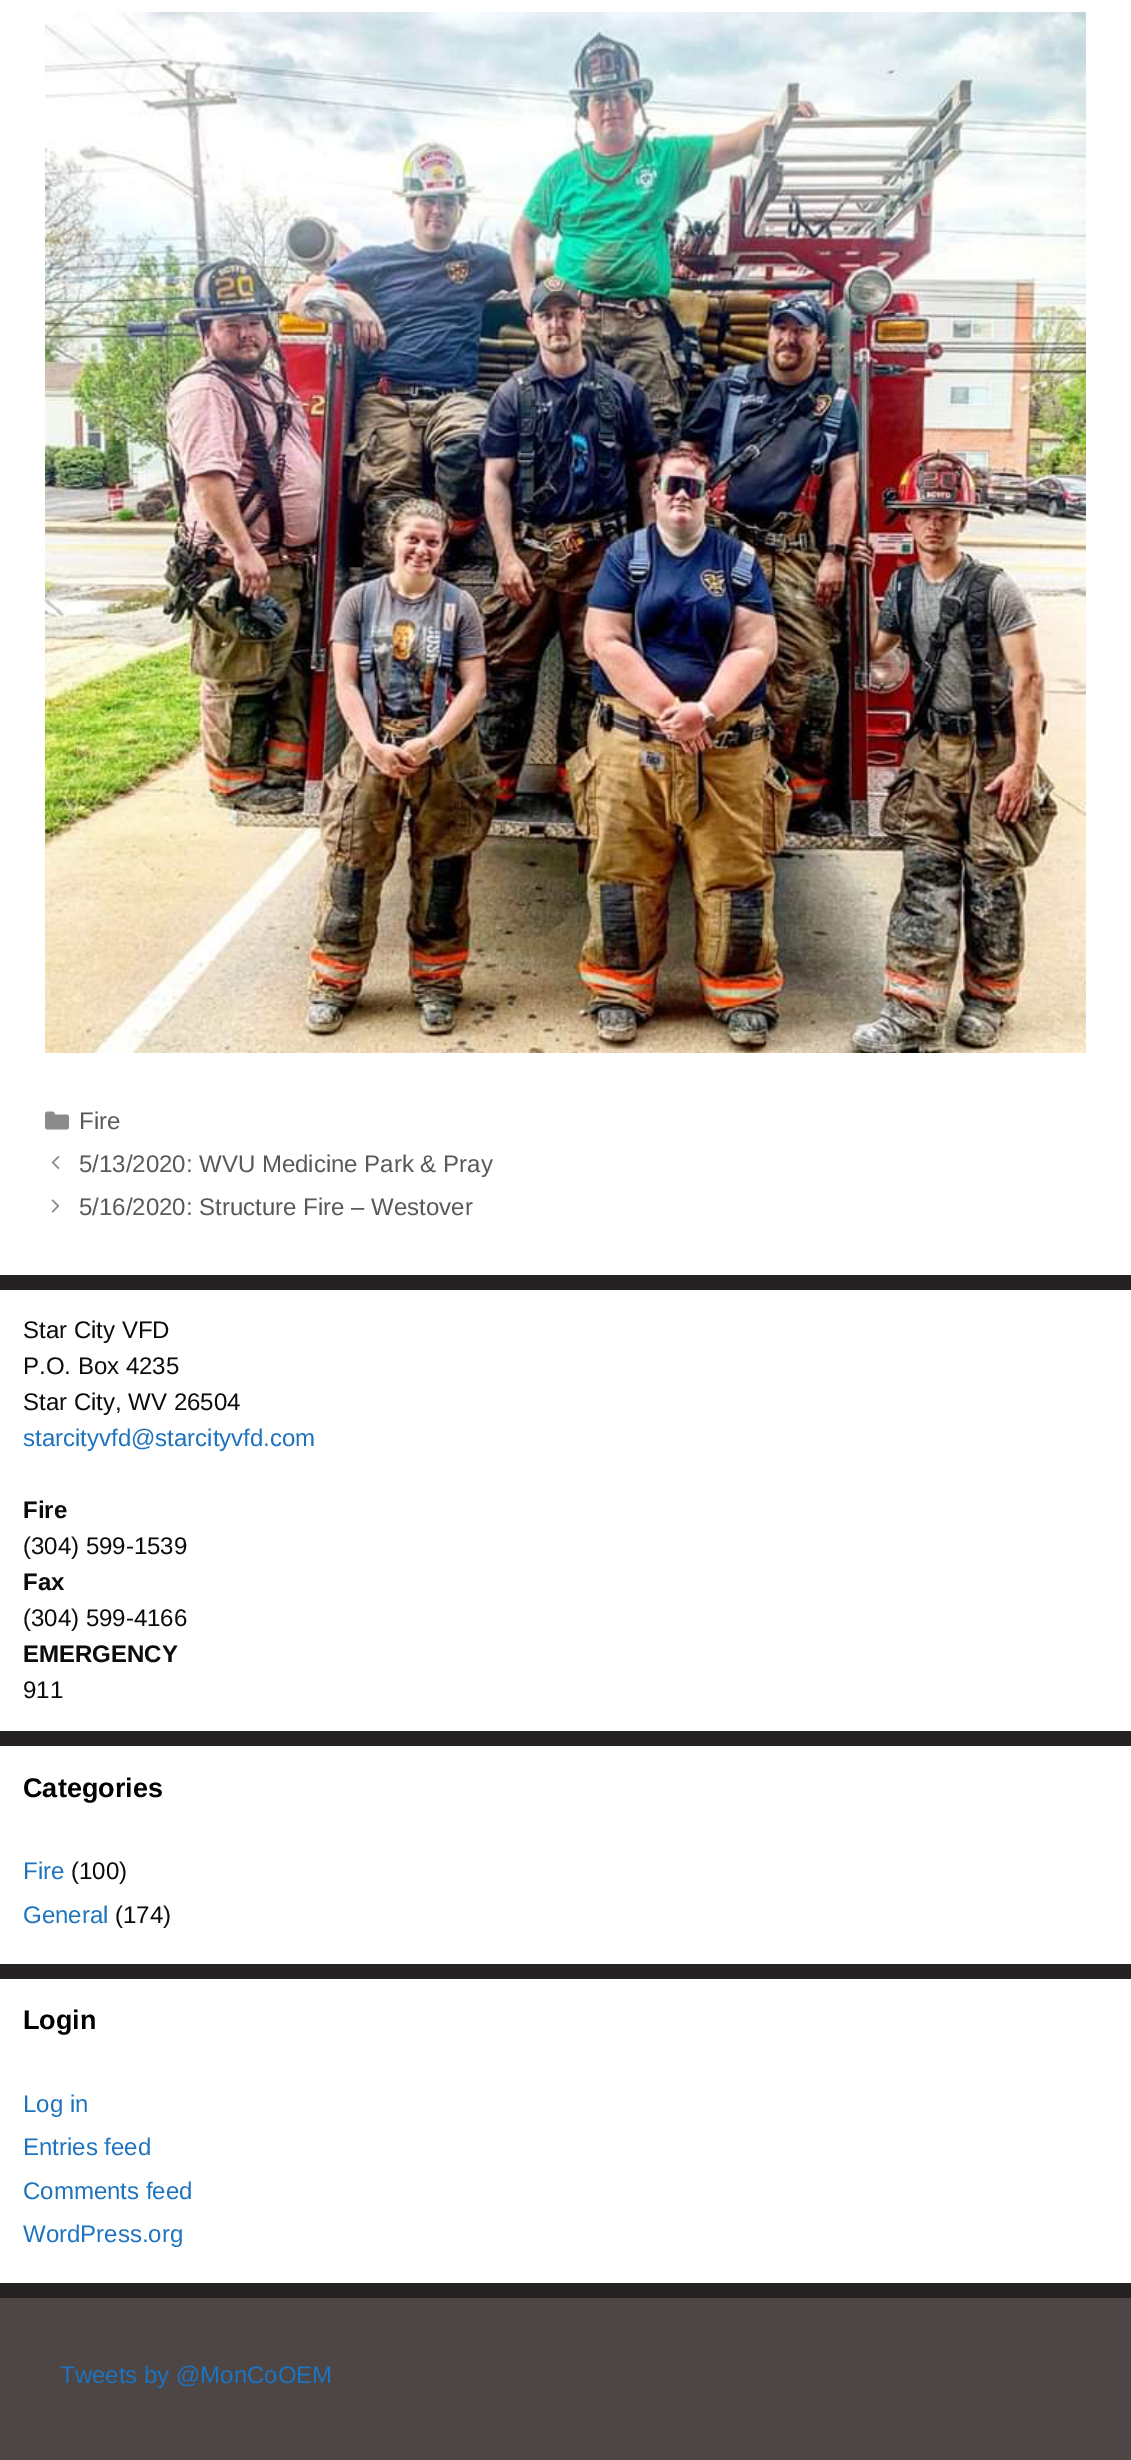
%!PS
<< /PageSize [1131 2460] >> setpagedevice
/rgb { dup -16 bitshift 255 div exch dup -8 bitshift 255 and 255 div exch 255 and 255 div setrgbcolor } def
/font { [ exch dup neg 0 0 3 -1 roll 0 0 ] selectfont } def
/text { moveto show } def
/picture { 5 dict begin { /h /w /y /x /name } { exch def } forall
  gsave x y translate w h scale
  w h 8 [w 0 0 h 0 0] name (r) file false 3 colorimage grestore end } def
0 2460 translate 1 -1 scale
4 setmiterlimit
/s1 { /LiberationSans-Regular 24 font 16#595959 rgb } def
/s2 { /LiberationSans-Regular 24 font 16#0C0C0C rgb } def
/s3 { /LiberationSans-Regular 24 font 16#1E73BE rgb } def
/s4 { /LiberationSans-Bold 24 font 16#0C0C0C rgb } def
/s5 { /LiberationSans-Bold 27 font 16#000000 rgb } def
16#242222 rgb
0 0 1131 2460 rectfill
16#FFFFFF rgb
0 0 1131 1275 rectfill
(pic1.raw) 45 12 1041 1041 picture
(pic2.raw) 45 1111 24 19 picture
s1
(Fire) 79 1129 text
(pic3.raw) 51 1155 9 15 picture
(5/13/2020: WVU Medicine Park & Pray) 79 1172 text
(pic4.raw) 51 1199 9 14 picture
(5/16/2020: Structure Fire – Westover) 79 1215 text
16#FFFFFF rgb
0 1290 1131 441 rectfill
s2
(Star City VFD) 23 1338 text
(P.O. Box 4235) 23 1374 text
(Star City, WV 26504) 23 1410 text
s3
(starcityvfd@starcityvfd.com) 23 1446 text
s4
(Fire) 23 1518 text
s2
(\(304\) 599-1539) 23 1554 text
s4
(Fax) 23 1590 text
s2
(\(304\) 599-4166) 23 1626 text
s4
(EMERGENCY) 23 1662 text
s2
(911) 23 1698 text
16#FFFFFF rgb
0 1746 1131 218 rectfill
s5
(Categories) 23 1797 text
s3
(Fire) 23 1879 text
s2
(\(100\)) 71 1879 text
s3
(General) 23 1923 text
s2
(\(174\)) 115 1923 text
16#FFFFFF rgb
0 1979 1131 304 rectfill
s5
(Login) 23 2029 text
s3
(Log in) 23 2112 text
(Entries feed) 23 2155 text
(Comments feed) 23 2199 text
(WordPress.org) 23 2242 text
16#4E4545 rgb
0 2298 1131 162 rectfill
s3
(Tweets by @MonCoOEM) 60 2383 text
showpage
